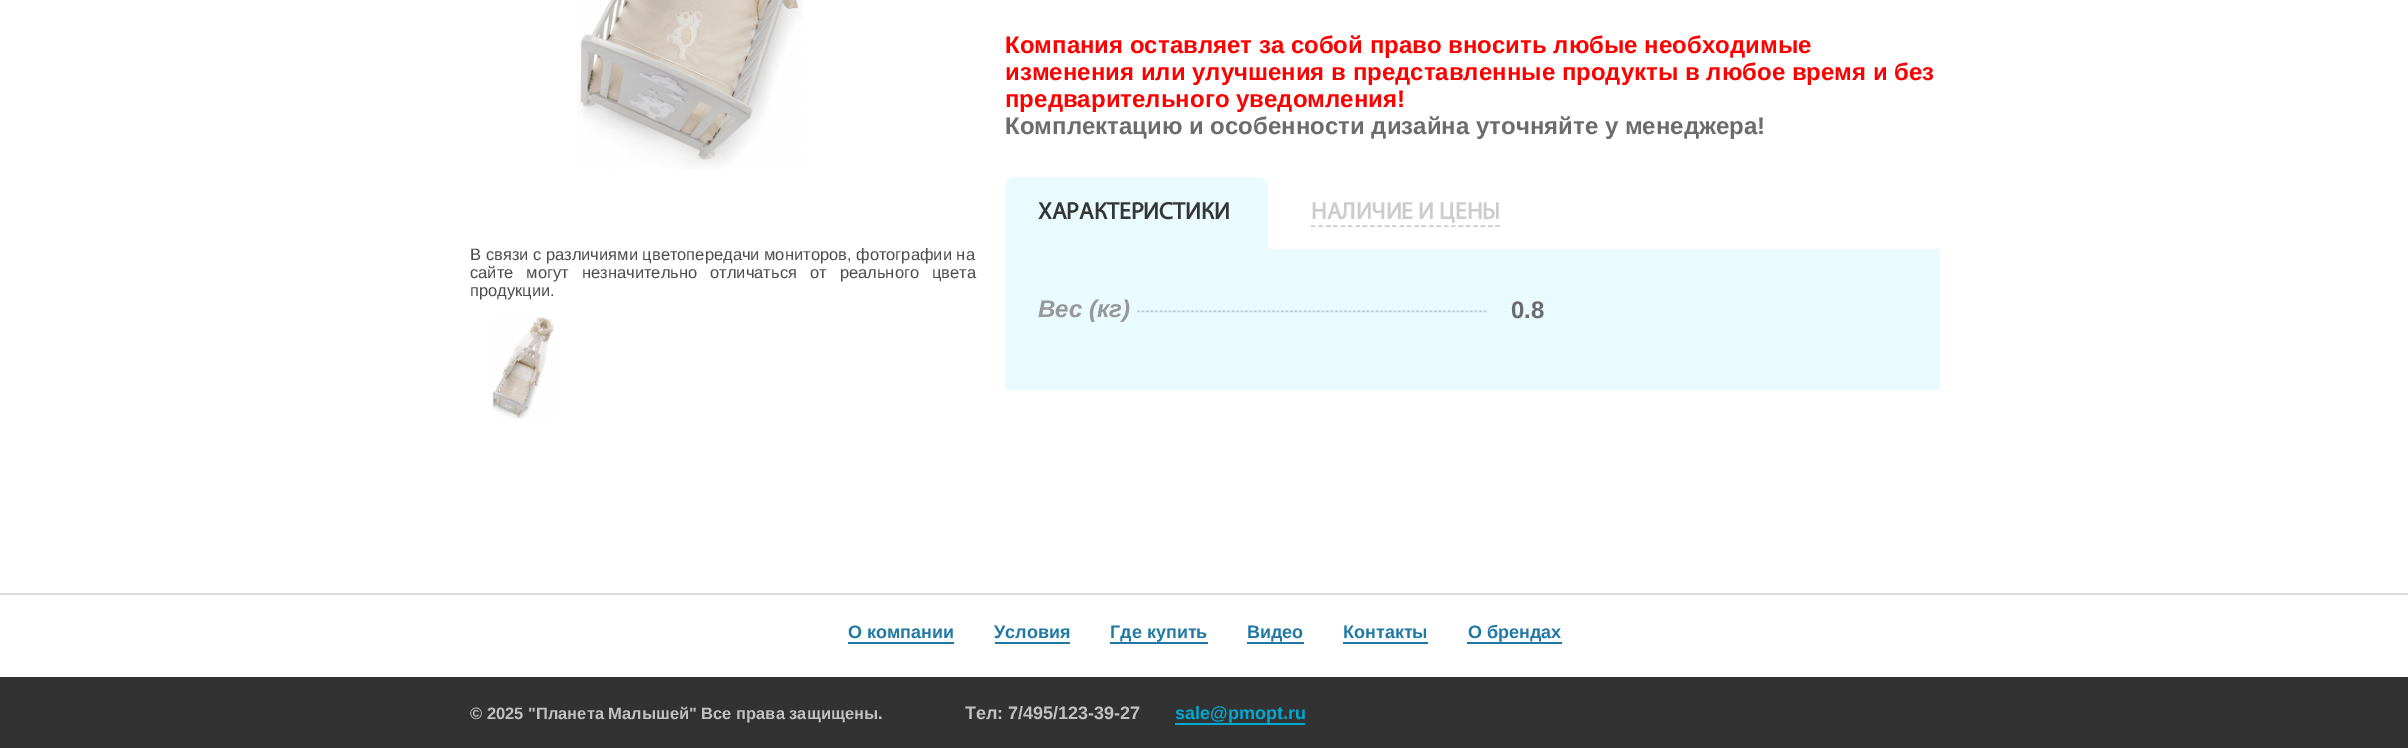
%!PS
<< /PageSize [2408 748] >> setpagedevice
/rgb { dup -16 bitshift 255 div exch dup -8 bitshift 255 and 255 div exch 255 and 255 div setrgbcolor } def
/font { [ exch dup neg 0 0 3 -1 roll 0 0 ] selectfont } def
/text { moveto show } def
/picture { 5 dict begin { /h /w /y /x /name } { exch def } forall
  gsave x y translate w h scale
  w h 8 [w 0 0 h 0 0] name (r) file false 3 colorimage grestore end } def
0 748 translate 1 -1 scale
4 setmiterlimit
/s1 { /LiberationSans-Regular 16.5 font 16#4D4D4D rgb } def
/s2 { /LiberationSans-Bold 24 font 16#FF0000 rgb } def
/s3 { /LiberationSans-Bold 24 font 16#6C6C6C rgb } def
/s4 { /Myriad-Bold 24 font 16#353535 rgb } def
/s5 { /Myriad-Bold 24 font 16#CCCCCC rgb } def
/s6 { /LiberationSans-BoldItalic 24 font 16#989898 rgb } def
/s7 { /LiberationSans-Bold 18 font 16#2078A5 rgb } def
/s8 { /LiberationSans-Bold 16.5 font 16#C1C1C1 rgb } def
/s9 { /LiberationSans-Bold 18 font 16#C1C1C1 rgb } def
/s10 { /LiberationSans-Bold 18 font 16#01A8D2 rgb } def
16#FFFFFF rgb
0 0 2408 748 rectfill
(pic1.raw) 577 0 227 170 picture
s1
(В связи с различиями цветопередачи мониторов, фотографии на) 470 260 text
470 278 moveto 8.5 0 32 (сайте могут незначительно отличаться от реального цвета) widthshow
(продукции.) 470 296 text
(pic2.raw) 492 317 62 102 picture
s2
(Компания оставляет за собой право вносить любые необходимые) 1005 53 text
(изменения или улучшения в представленные продукты в любое время и без) 1005 80 text
(предварительного уведомления!) 1005 107 text
s3
(Комплектацию и особенности дизайна уточняйте у менеджера!) 1005 134 text
16#E9FBFF rgb
1016 177 moveto 1257 177 lineto 1263 177 1268 182 1268 188 curveto 1268 249 lineto 1005 249 lineto 1005 188 lineto 1005 182 1010 177 1016 177 curveto closepath fill
s4
(ХАРАКТЕРИСТИКИ) 1038 219 text
s5
(НАЛИЧИЕ И ЦЕНЫ) 1311 219 text
1.5 setlinewidth
[4.5 2.88] 0 setdash
1311 226 moveto 1500 226 lineto stroke
16#E9FBFF rgb
1005 249 935 141 rectfill
(pic3.raw) 1137 310 351 3 picture
s6
(Вес \(кг\)) 1038 317 text
s3
(0.8) 1511 318 text
16#DCDCDC rgb
0 593 2408 2 rectfill
s7
(О компании) 848 638 text
848 642 106 2 rectfill
(Условия) 994 638 text
995 642 75 2 rectfill
(Где купить) 1110 638 text
1110 642 98 2 rectfill
(Видео) 1247 638 text
1247 642 57 2 rectfill
(Контакты) 1343 638 text
1343 642 85 2 rectfill
(О брендах) 1468 638 text
1467 642 95 2 rectfill
16#323232 rgb
0 677 2408 71 rectfill
s8
(© 2025 "Планета Малышей" Все права защищены.) 470 719 text
s9
(Тел: 7/495/123-39-27) 965 719 text
s10
(sale@pmopt.ru) 1175 719 text
1175 723 130 2 rectfill
showpage
